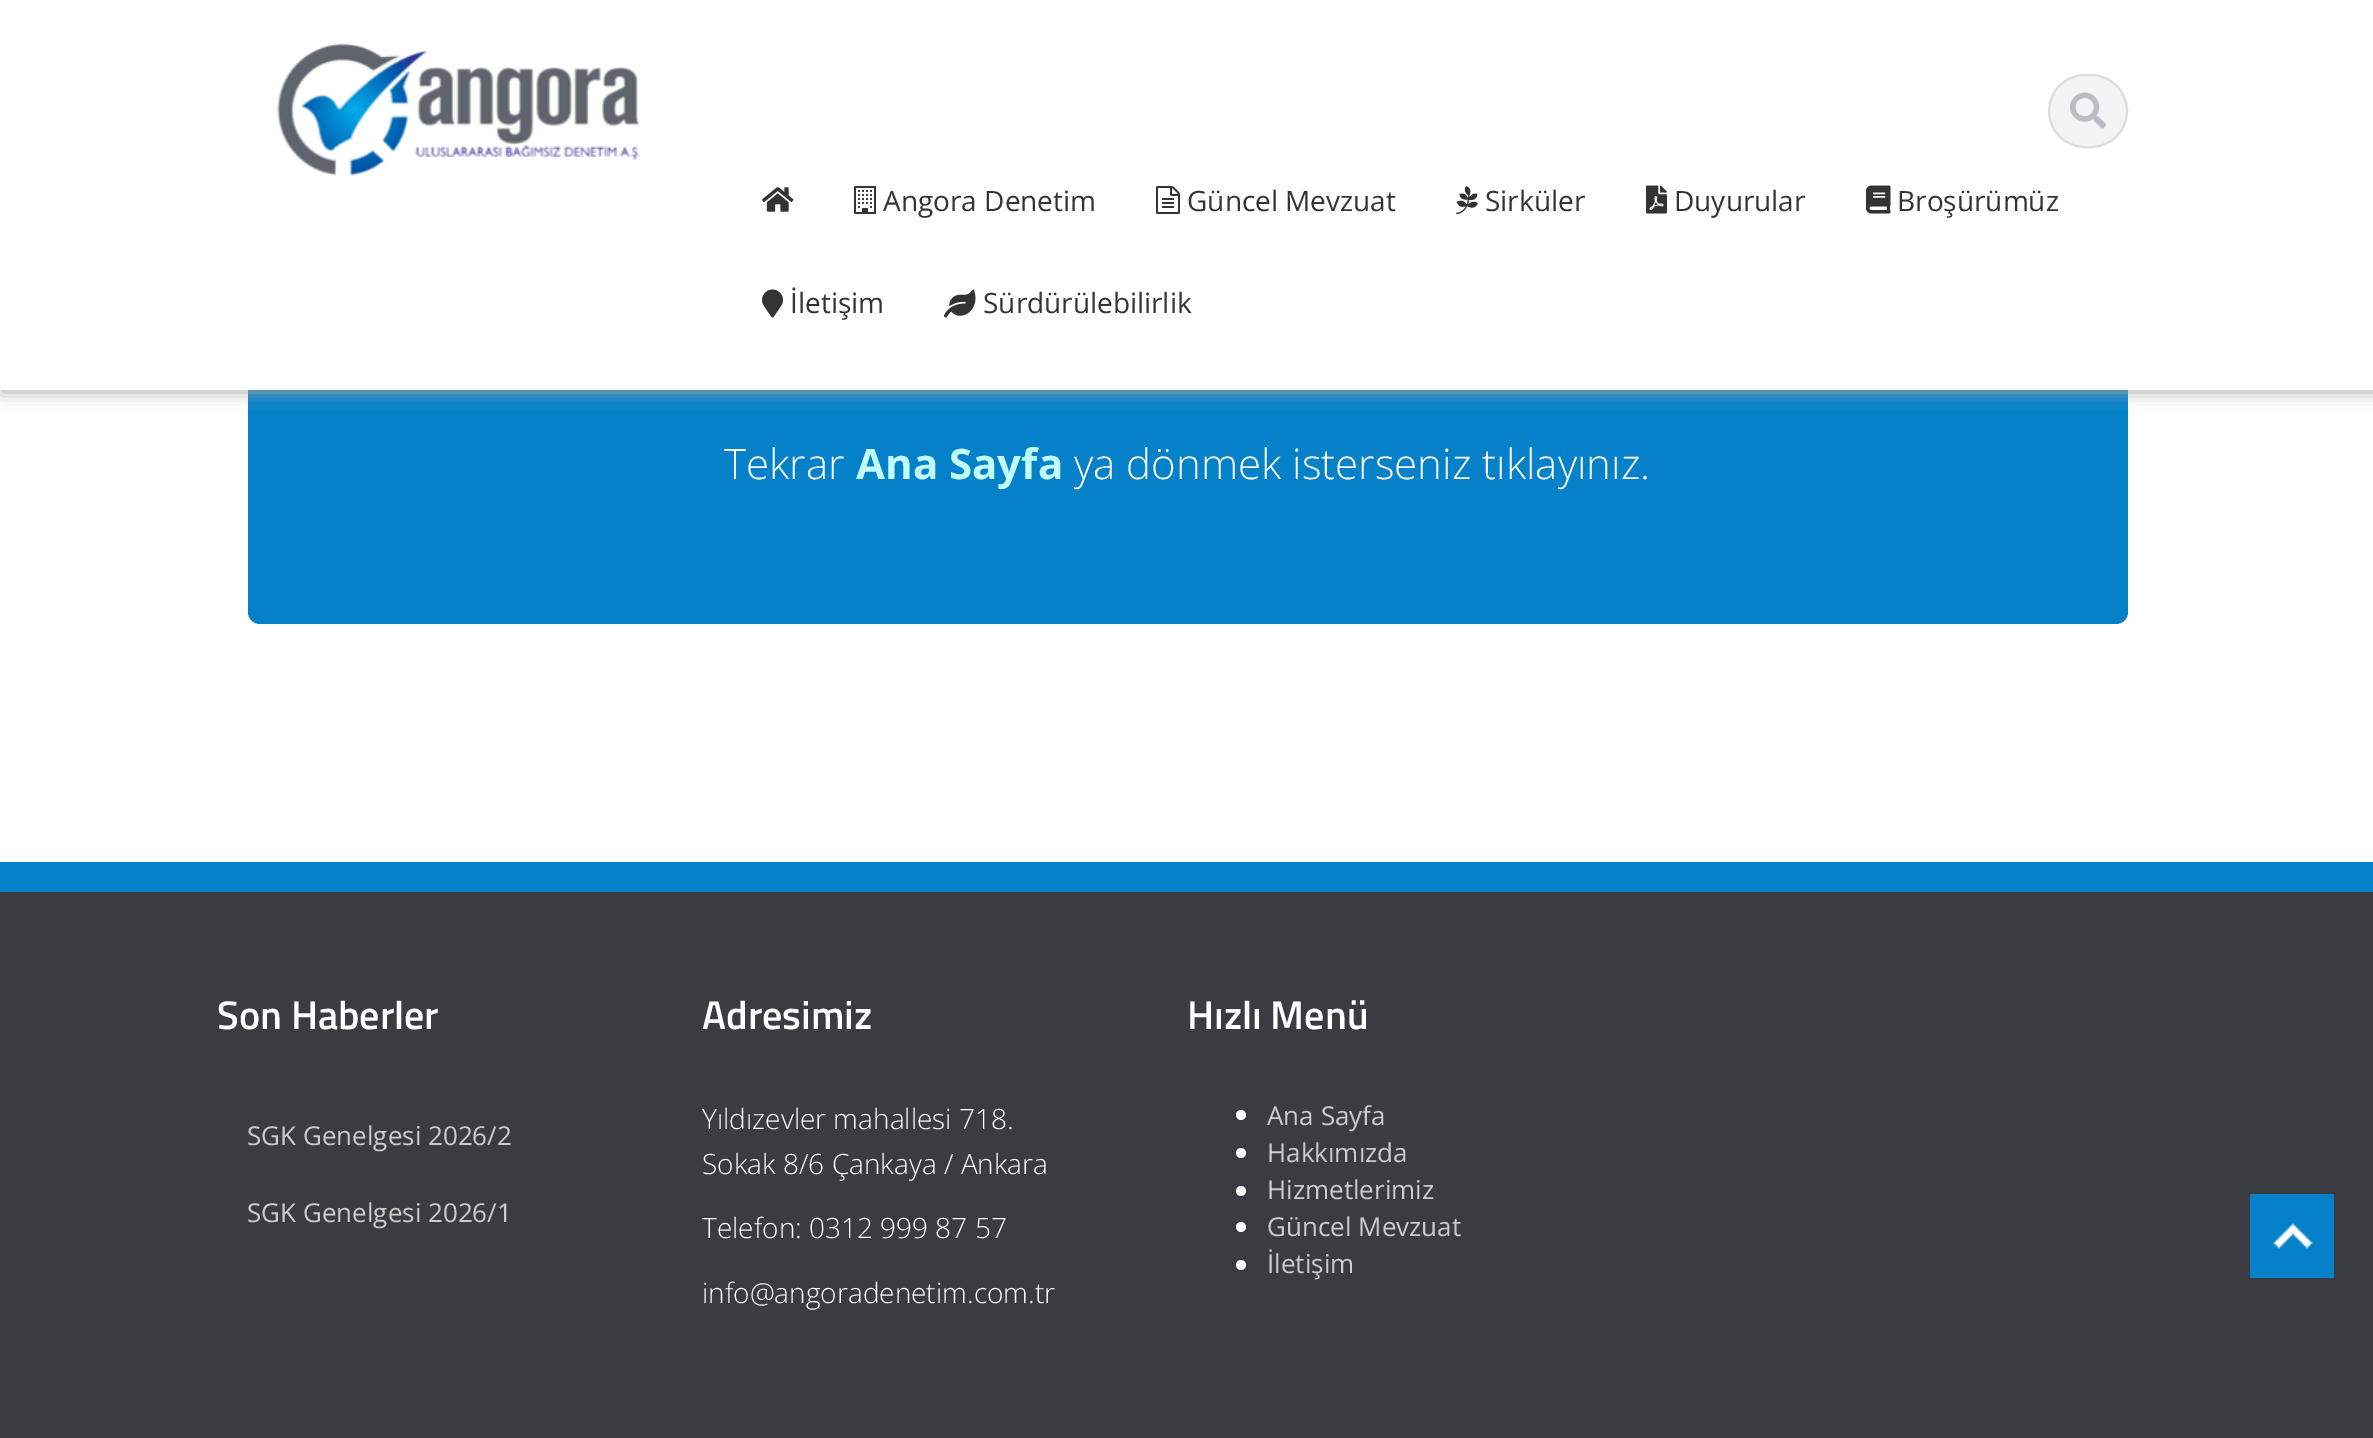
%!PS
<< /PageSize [2373 1438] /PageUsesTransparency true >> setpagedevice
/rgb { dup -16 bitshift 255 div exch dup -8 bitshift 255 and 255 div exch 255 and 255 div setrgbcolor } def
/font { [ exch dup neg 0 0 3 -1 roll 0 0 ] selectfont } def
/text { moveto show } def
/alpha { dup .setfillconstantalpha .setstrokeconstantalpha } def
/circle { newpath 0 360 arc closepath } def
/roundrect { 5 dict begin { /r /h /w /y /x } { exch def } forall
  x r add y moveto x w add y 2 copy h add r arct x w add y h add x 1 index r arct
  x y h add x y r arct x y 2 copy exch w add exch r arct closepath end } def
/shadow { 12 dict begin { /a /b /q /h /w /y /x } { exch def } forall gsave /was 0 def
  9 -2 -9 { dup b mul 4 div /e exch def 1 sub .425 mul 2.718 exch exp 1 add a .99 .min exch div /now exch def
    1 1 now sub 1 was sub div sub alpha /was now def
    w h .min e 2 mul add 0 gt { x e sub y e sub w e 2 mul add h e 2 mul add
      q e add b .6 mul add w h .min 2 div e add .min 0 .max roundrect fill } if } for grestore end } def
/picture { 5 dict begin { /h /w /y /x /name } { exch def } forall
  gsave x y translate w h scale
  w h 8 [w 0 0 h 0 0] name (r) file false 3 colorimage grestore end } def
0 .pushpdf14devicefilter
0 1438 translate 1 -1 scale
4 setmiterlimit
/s1 { /OpenSans-Regular 28 font 16#333333 rgb } def
/s2 { /OpenSans-Light 42 font 16#FFFFFF rgb } def
/s3 { /OpenSans-Bold 42 font 16#C2FFFF rgb } def
/s4 { /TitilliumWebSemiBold-SemiBold 40 font 16#FFFFFF rgb } def
/s5 { /OpenSans-Regular 26 font 16#CCCCCC rgb } def
/s6 { /OpenSans-Light 28 font 16#FFFFFF rgb } def
16#FFFFFF rgb
0 0 2373 1438 rectfill
16#0481C9 rgb
248 -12 1880 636 12 roundrect fill
16#AAAAAA rgb
2 2 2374 390 0 8 1 shadow
16#FFFFFF rgb
0 0 2373 390 rectfill
(pic1.raw) 277 43 363 133 picture
16#F4F4F4 rgb
2049 75 78 72 36 roundrect gsave fill grestore
16#DDDDDD rgb
2 setlinewidth
stroke
(pic2.raw) 2070 92 36 37 picture
(pic3.raw) 762 187 32 25 picture
(pic4.raw) 854 186 22 28 picture
s1
(Angora Denetim) 883 211 text
(pic5.raw) 1156 186 24 28 picture
(Güncel Mevzuat) 1187 211 text
(pic6.raw) 1456 186 22 28 picture
(Sirküler) 1485 211 text
(pic7.raw) 1646 185 21 29 picture
(Duyurular) 1674 211 text
(pic8.raw) 1866 185 25 29 picture
(Broşürümüz) 1897 211 text
(pic9.raw) 762 289 21 29 picture
(İletişim) 790 313 text
(pic10.raw) 944 289 32 29 picture
(Sürdürülebilirlik) 983 313 text
s2
(Tekrar) 724 479 text
s3
(Ana Sayfa) 856 479 text
s2
(ya dönmek isterseniz tıklayınız.) 1074 479 text
16#3A3C41 rgb
0 892 2373 546 rectfill
16#0481C9 rgb
0 862 2373 30 rectfill
s4
(Son Haberler) 217 1029 text
s5
(SGK Genelgesi 2026/2) 247 1145 text
(SGK Genelgesi 2026/1) 247 1222 text
s4
(Adresimiz) 702 1029 text
s6
(Yıldızevler mahallesi 718.) 702 1129 text
(Sokak 8/6 Çankaya / Ankara) 702 1174 text
(Telefon: 0312 999 87 57) 702 1238 text
(info@angoradenetim.com.tr) 702 1303 text
s4
(Hızlı Menü) 1187 1029 text
1241 1115 5 circle fill
s5
(Ana Sayfa) 1267 1125 text
16#FFFFFF rgb
1241 1153 5 circle fill
s5
(Hakkımızda) 1267 1162 text
16#FFFFFF rgb
1241 1191 5 circle fill
s5
(Hizmetlerimiz) 1267 1199 text
16#FFFFFF rgb
1241 1227 5 circle fill
s5
(Güncel Mevzuat) 1267 1236 text
16#FFFFFF rgb
1241 1265 5 circle fill
s5
(İletişim) 1267 1273 text
16#0481C9 rgb
2250 1194 84 84 rectfill
(pic11.raw) 2273 1223 40 26 picture
.poppdf14devicefilter showpage
